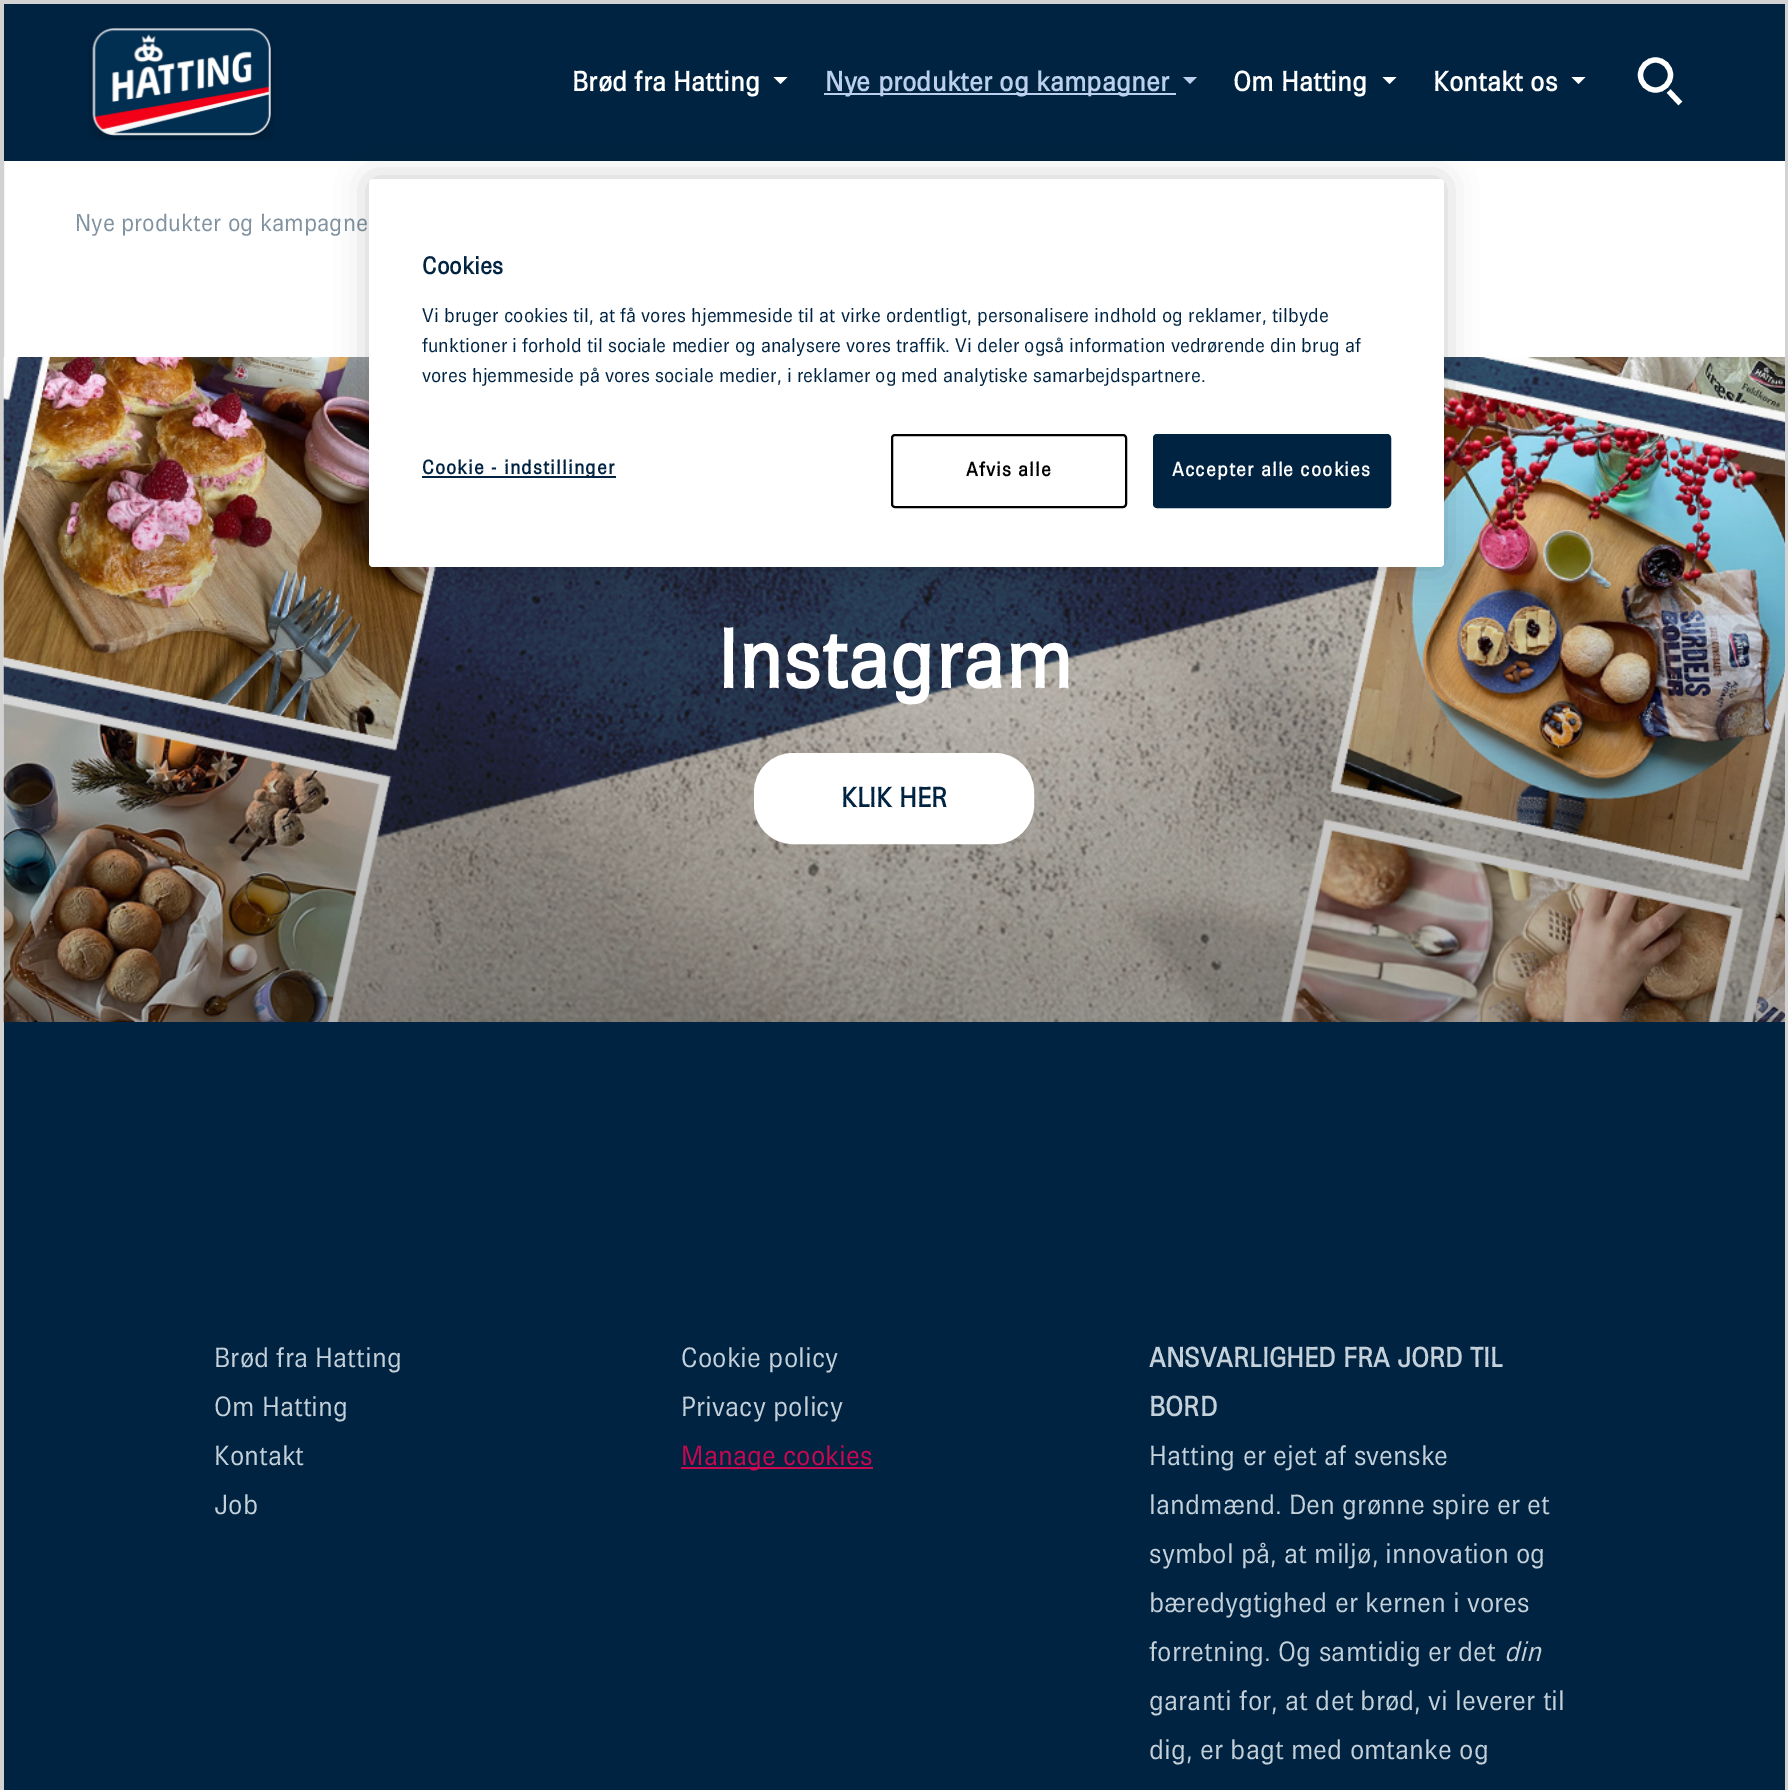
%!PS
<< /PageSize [1788 1790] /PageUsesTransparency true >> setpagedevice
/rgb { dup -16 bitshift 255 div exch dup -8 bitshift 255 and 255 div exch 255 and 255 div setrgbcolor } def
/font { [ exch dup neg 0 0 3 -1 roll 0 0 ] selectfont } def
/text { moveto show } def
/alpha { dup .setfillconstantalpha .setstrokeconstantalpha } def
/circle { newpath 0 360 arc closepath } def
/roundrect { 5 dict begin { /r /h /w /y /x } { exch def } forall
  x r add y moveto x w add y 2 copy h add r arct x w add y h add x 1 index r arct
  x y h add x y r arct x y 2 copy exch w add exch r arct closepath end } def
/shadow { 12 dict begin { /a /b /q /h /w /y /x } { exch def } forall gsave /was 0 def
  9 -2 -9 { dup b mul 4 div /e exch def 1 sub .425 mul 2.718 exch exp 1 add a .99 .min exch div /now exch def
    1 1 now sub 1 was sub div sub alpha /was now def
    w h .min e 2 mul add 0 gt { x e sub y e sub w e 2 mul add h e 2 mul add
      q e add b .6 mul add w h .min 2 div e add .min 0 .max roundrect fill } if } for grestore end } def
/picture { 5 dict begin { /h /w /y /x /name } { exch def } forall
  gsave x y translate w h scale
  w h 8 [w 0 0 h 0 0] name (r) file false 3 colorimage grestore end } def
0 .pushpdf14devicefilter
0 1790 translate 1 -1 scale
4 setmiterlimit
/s1 { /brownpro-Bold 28 font 16#FFFFFF rgb } def
/s2 { /brownpro-Bold 28 font 16#BAD0EC rgb } def
/s3 { /brownpro-Regular 24.5 font 16#8091A0 rgb } def
/s4 { /brownpro-Bold 84 font 16#FFFFFF rgb } def
/s5 { /brownpro-Bold 28 font 16#002341 rgb } def
/s6 { /brownpro-Bold 24.5 font 16#002341 rgb } def
/s7 { /brownpro-Regular 19.9 font 16#002341 rgb } def
/s8 { /brownpro-Regular 28 font 16#C4D1DB rgb } def
/s9 { /brownpro-Regular 28 font 16#C80850 rgb } def
/s10 { /brownpro-Bold 28 font 16#C4D1DB rgb } def
/s11 { /brownpro-Italic 28 font 16#C4D1DB rgb } def
16#FFFFFF rgb
0 0 1788 1790 rectfill
16#D2D2D2 rgb
4 setlinewidth
2 2 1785 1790 rectstroke
16#002341 rgb
4 4 1781 157 rectfill
(pic1.raw) 88 28 187 112 picture
s1
(Brød fra Hatting) 572 91 text
773.5 77 moveto 787.5 77 lineto 780.5 84 lineto closepath fill
16#BAD0EC rgb
824 93 352 2 rectfill
(Nye produkter og kampagner) 825 91 text
1183 77 moveto 1197 77 lineto 1190 84 lineto closepath fill
s1
(Om Hatting) 1233 91 text
1382.5 77 moveto 1396.5 77 lineto 1389.5 84 lineto closepath fill
(Kontakt os) 1433 91 text
1571.5 77 moveto 1585.5 77 lineto 1578.5 84 lineto closepath fill
5.2 setlinewidth
1655.5 75 15 circle stroke
2 setlinecap
1670.5 93 moveto 1678.5 101.5 lineto stroke
s3
(Nye produkter og kampagne) 75 231 text
(pic2.raw) 3 357 1782 665 picture
s4
(Instagram) 717 688 text
756 755 276 87 37 roundrect gsave fill grestore
4 setlinewidth
0 setlinecap
stroke
s5
(KLIK HER) 841 807 text
16#000000 rgb
369 179 1075 388 4 16 0.2 shadow
16#FFFFFF rgb
369 179 1075 388 4 roundrect fill
s6
(Cookies) 422 274 text
s7
(Vi bruger cookies til, at få vores hjemmeside til at virke ordentligt, personalisere indhold og reklamer, tilbyde) 422 322 text
(funktioner i forhold til sociale medier og analysere vores traffik. Vi deler også information vedrørende din brug af) 422 352 text
(vores hjemmeside på vores sociale medier, i reklamer og med analytiske samarbejdspartnere.) 422 382 text
422 476 194 2 rectfill
/brownpro-Bold 19.9 font
422 474 moveto 1 0 (Cookie - indstillinger) ashow
16#000000 rgb
2 setlinewidth
892 435 234 72 3 roundrect stroke
966 476 moveto 1 0 (Afvis alle) ashow
16#002341 rgb
1154 435 236 72 3 roundrect gsave fill grestore
stroke
16#FFFFFF rgb
1172 476 moveto 1 0 (Accepter alle cookies) ashow
16#002341 rgb
4 1022 1781 768 rectfill
s8
(Brød fra Hatting) 214 1367 text
(Om Hatting) 214 1416 text
(Kontakt) 214 1465 text
(Job) 214 1514 text
(Cookie policy) 681 1367 text
(Privacy policy) 681 1416 text
16#C80850 rgb
681 1467 192 2 rectfill
(Manage cookies) 681 1465 text
s10
(ANSVARLIGHED FRA JORD TIL) 1149 1367 text
(BORD) 1149 1416 text
s8
(Hatting er ejet af svenske) 1149 1465 text
(landmænd. Den grønne spire er et) 1149 1514 text
(symbol på, at miljø, innovation og) 1149 1563 text
(bæredygtighed er kernen i vores) 1149 1612 text
(forretning. Og samtidig er det) 1149 1661 text
s11
(din) 1504 1661 text
s8
(garanti for, at det brød, vi leverer til) 1149 1710 text
(dig, er bagt med omtanke og) 1149 1759 text
.poppdf14devicefilter showpage
